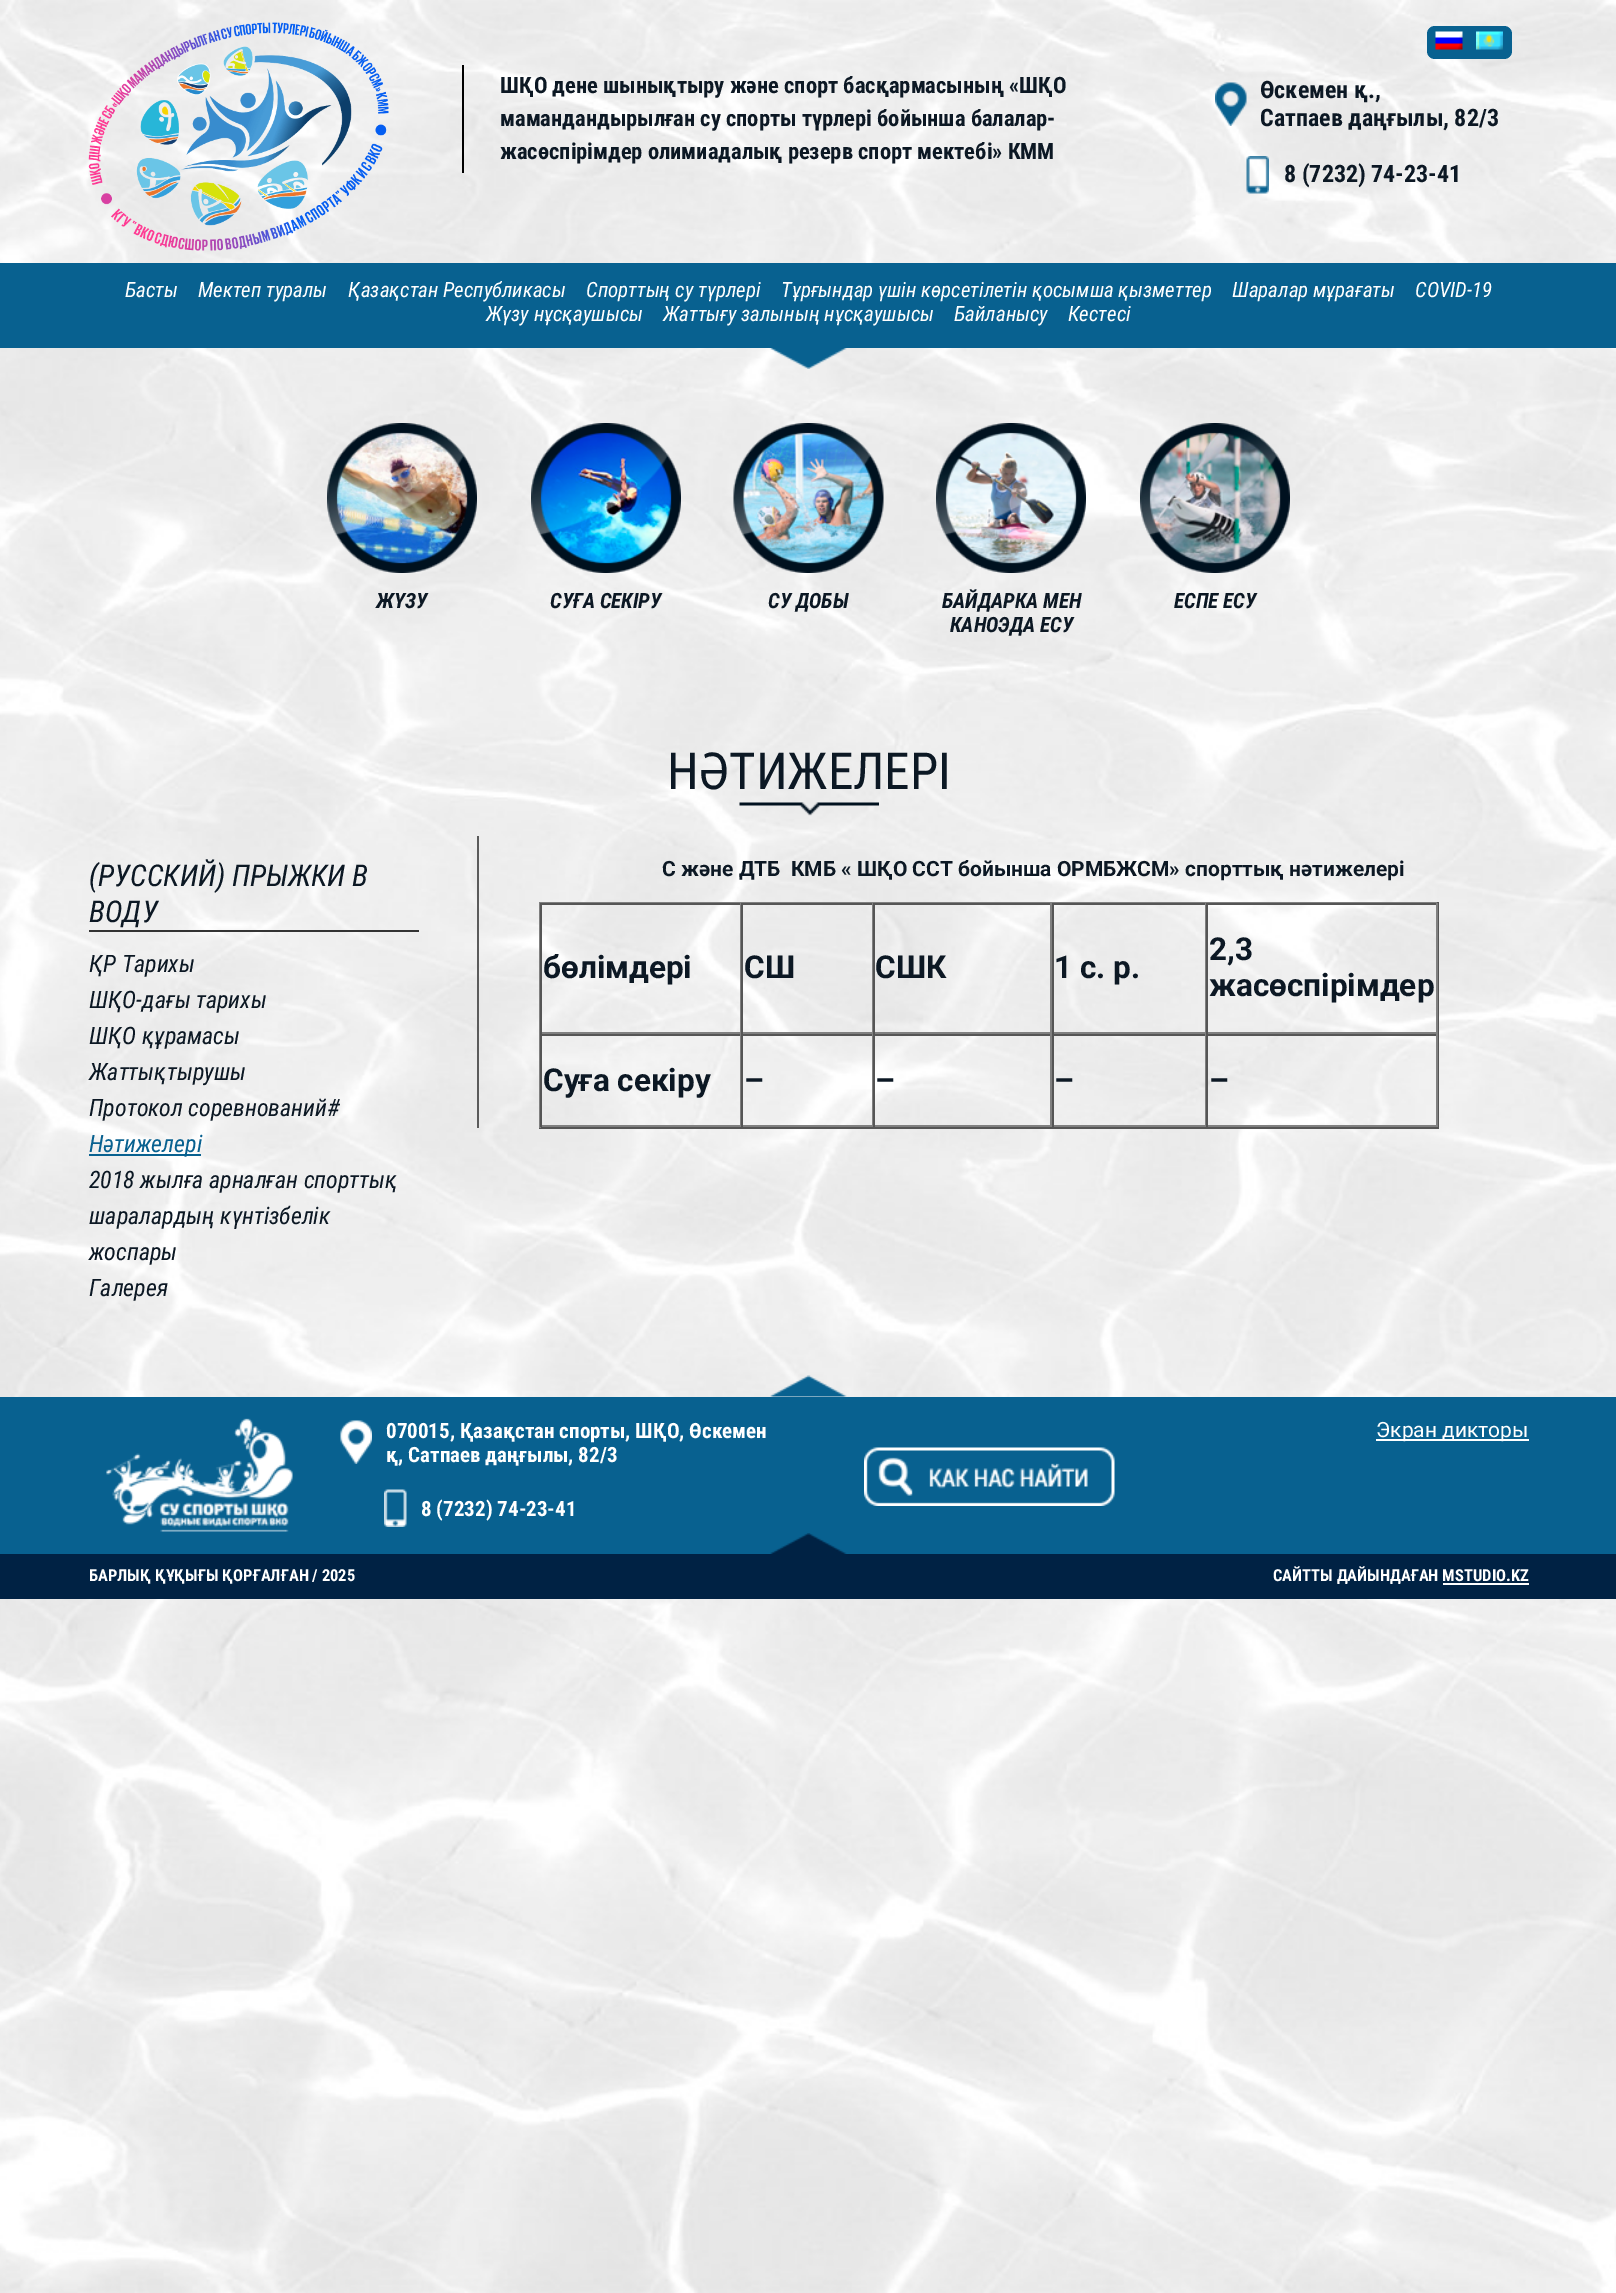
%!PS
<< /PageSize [1616 2293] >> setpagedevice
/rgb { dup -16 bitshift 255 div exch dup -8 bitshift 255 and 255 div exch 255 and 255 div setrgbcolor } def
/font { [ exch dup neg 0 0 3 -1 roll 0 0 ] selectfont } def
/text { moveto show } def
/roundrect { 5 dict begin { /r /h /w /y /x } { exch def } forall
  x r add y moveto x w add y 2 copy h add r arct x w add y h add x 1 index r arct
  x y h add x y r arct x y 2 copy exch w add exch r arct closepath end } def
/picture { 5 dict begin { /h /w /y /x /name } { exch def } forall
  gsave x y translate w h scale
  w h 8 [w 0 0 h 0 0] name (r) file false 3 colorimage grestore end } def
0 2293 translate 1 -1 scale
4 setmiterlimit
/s1 { /RobotoCondensed-Bold 22.5 font 16#0C1824 rgb } def
/s2 { /RobotoCondensed-Bold 24 font 16#0C1824 rgb } def
/s3 { /RobotoCondensed-Italic 21 font 16#FFFFFF rgb } def
/s4 { /RobotoCondensed-BoldItalic 21 font 16#0C1824 rgb } def
/s5 { /RobotoCondensed-Regular 51 font 16#0C1824 rgb } def
/s6 { /RobotoCondensed-Italic 30 font 16#0C1824 rgb } def
/s7 { /RobotoCondensed-Italic 24 font 16#0C1824 rgb } def
/s8 { /RobotoCondensed-Italic 24 font 16#086190 rgb } def
/s9 { /Roboto-Bold 21 font 16#0C1824 rgb } def
/s10 { /Roboto-Bold 31.5 font 16#0C1824 rgb } def
/s11 { /RobotoCondensed-Bold 21 font 16#FFFFFF rgb } def
/s12 { /Roboto-Regular 21 font 16#FFFFFF rgb } def
/s13 { /RobotoCondensed-Bold 16.5 font 16#FFFFFF rgb } def
16#FFFFFF rgb
0 0 1616 2293 rectfill
(pic1.raw) 0 0 1616 2293 picture
(pic2.raw) 88 22 301 229 picture
16#000000 rgb
462 65 2 108 rectfill
s1
(ШҚО дене шынықтыру және спорт басқармасының «ШҚО) 500 93 text
(мамандандырылған су спорты түрлері бойынша балалар-) 500 126 text
(жасөспірімдер олимиадалық резерв спорт мектебі» КММ) 500 159 text
16#086190 rgb
1427 26 85 33 8 roundrect fill
(pic3.raw) 1435 31 28 19 picture
(pic4.raw) 1476 31 27 19 picture
(pic5.raw) 1215 82 32 44 picture
s2
(Өскемен қ.,) 1260 98 text
(Сатпаев даңғылы, 82/3) 1260 126 text
(pic6.raw) 1246 156 23 38 picture
(8 \(7232\) 74-23-41) 1284 182 text
16#086190 rgb
0 263 1616 85 rectfill
s3
(Басты) 125 297 text
(Мектеп туралы) 198 297 text
(Қазақстан Республикасы) 348 297 text
(Спорттың су түрлері) 586 297 text
(Тұрғындар үшін көрсетілетін қосымша қызметтер) 781 297 text
(Шаралар мұрағаты) 1232 297 text
(COVID-19) 1415 297 text
(Жүзу нұсқаушысы) 486 321 text
(Жаттығу залының нұсқаушысы) 663 321 text
(Байланысу) 954 321 text
(Кестесі) 1068 321 text
(pic7.raw) 769 348 78 21 picture
(pic8.raw) 327 423 150 150 picture
s4
(ЖҮЗУ) 376 608 text
(pic9.raw) 531 423 150 150 picture
(СУҒА СЕКІРУ) 550 608 text
(pic10.raw) 733 423 151 150 picture
(СУ ДОБЫ) 768 608 text
(pic11.raw) 936 423 150 150 picture
(БАЙДАРКА МЕН) 942 608 text
(КАНОЭДА ЕСУ) 950 632 text
(pic12.raw) 1140 423 150 150 picture
(ЕСПЕ ЕСУ) 1174 608 text
s5
(НӘТИЖЕЛЕРІ) 667 789 text
(pic13.raw) 739 802 140 14 picture
16#333333 rgb
89 930 330 2 rectfill
s6
(\(РУССКИЙ\) ПРЫЖКИ В) 89 886 text
(ВОДУ) 89 922 text
s7
(ҚР Тарихы) 89 972 text
(ШҚО-дағы тарихы) 89 1008 text
(ШҚО құрамасы) 89 1044 text
(Жаттықтырушы) 89 1080 text
(Протокол соревнований#) 89 1116 text
16#086190 rgb
89 1154 112 2 rectfill
(Нәтижелері) 89 1152 text
s7
(2018 жылға арналған спорттық) 89 1188 text
(шаралардың күнтізбелік) 89 1224 text
(жоспары) 89 1260 text
(Галерея) 89 1296 text
16#5B5B5B rgb
477 836 2 292 rectfill
s9
(С және ДТБ  КМБ « ШҚО ССТ бойынша ОРМБЖСМ» спорттық нәтижелері) 662 876 text
16#808080 rgb
539 902 900 1 rectfill
16#555555 rgb
1437 902 2 226 rectfill
539 1127 900 2 rectfill
16#808080 rgb
539 902 2 226 rectfill
16#555555 rgb
540 903 897 2 rectfill
16#808080 rgb
740 903 1 131 rectfill
540 1032 201 2 rectfill
16#555555 rgb
540 903 2 131 rectfill
s10
(бөлімдері) 543 978 text
16#808080 rgb
872 903 1 131 rectfill
741 1032 132 2 rectfill
16#555555 rgb
741 903 2 131 rectfill
s10
(СШ) 744 978 text
16#808080 rgb
1050 903 2 131 rectfill
873 1032 179 2 rectfill
16#555555 rgb
873 903 2 131 rectfill
s10
(СШК) 875 978 text
16#808080 rgb
1205 903 1 131 rectfill
1052 1032 154 2 rectfill
16#555555 rgb
1052 903 2 131 rectfill
s10
(1 с. р.) 1054 978 text
16#808080 rgb
1436 903 2 131 rectfill
1206 1032 231 2 rectfill
16#555555 rgb
1206 903 2 131 rectfill
s10
(2,3) 1209 960 text
(жасөспірімдер) 1209 996 text
16#555555 rgb
540 1034 897 2 rectfill
16#808080 rgb
740 1034 1 93 rectfill
540 1125 201 2 rectfill
16#555555 rgb
540 1034 2 93 rectfill
s10
(Суға секіру) 543 1091 text
16#808080 rgb
872 1034 1 93 rectfill
741 1125 132 2 rectfill
16#555555 rgb
741 1034 2 93 rectfill
s10
(–) 744 1091 text
16#808080 rgb
1050 1034 2 93 rectfill
873 1125 179 2 rectfill
16#555555 rgb
873 1034 2 93 rectfill
s10
(–) 875 1091 text
16#808080 rgb
1205 1034 1 93 rectfill
1052 1125 154 2 rectfill
16#555555 rgb
1052 1034 2 93 rectfill
s10
(–) 1054 1091 text
16#808080 rgb
1436 1034 2 93 rectfill
1206 1125 231 2 rectfill
16#555555 rgb
1206 1034 2 93 rectfill
s10
(–) 1209 1091 text
16#086190 rgb
0 1397 1616 157 rectfill
(pic14.raw) 770 1375 77 22 picture
(pic15.raw) 106 1418 187 114 picture
(pic16.raw) 340 1420 32 44 picture
s11
(070015, Қазақстан спорты, ШҚО, Өскемен) 386 1438 text
(қ, Сатпаев даңғылы, 82/3) 386 1462 text
(pic17.raw) 384 1489 23 38 picture
(8 \(7232\) 74-23-41) 421 1516 text
1376 1439 153 2 rectfill
s12
(Экран дикторы) 1376 1437 text
(pic18.raw) 864 1447 251 59 picture
16#002244 rgb
0 1554 1616 45 rectfill
(pic19.raw) 770 1533 77 21 picture
s13
(БАРЛЫҚ ҚҰҚЫҒЫ ҚОРҒАЛҒАН / 2025) 89 1581 text
(САЙТТЫ ДАЙЫНДАҒАН MSTUDIO.KZ) 1273 1581 text
1443 1583 86 2 rectfill
showpage
